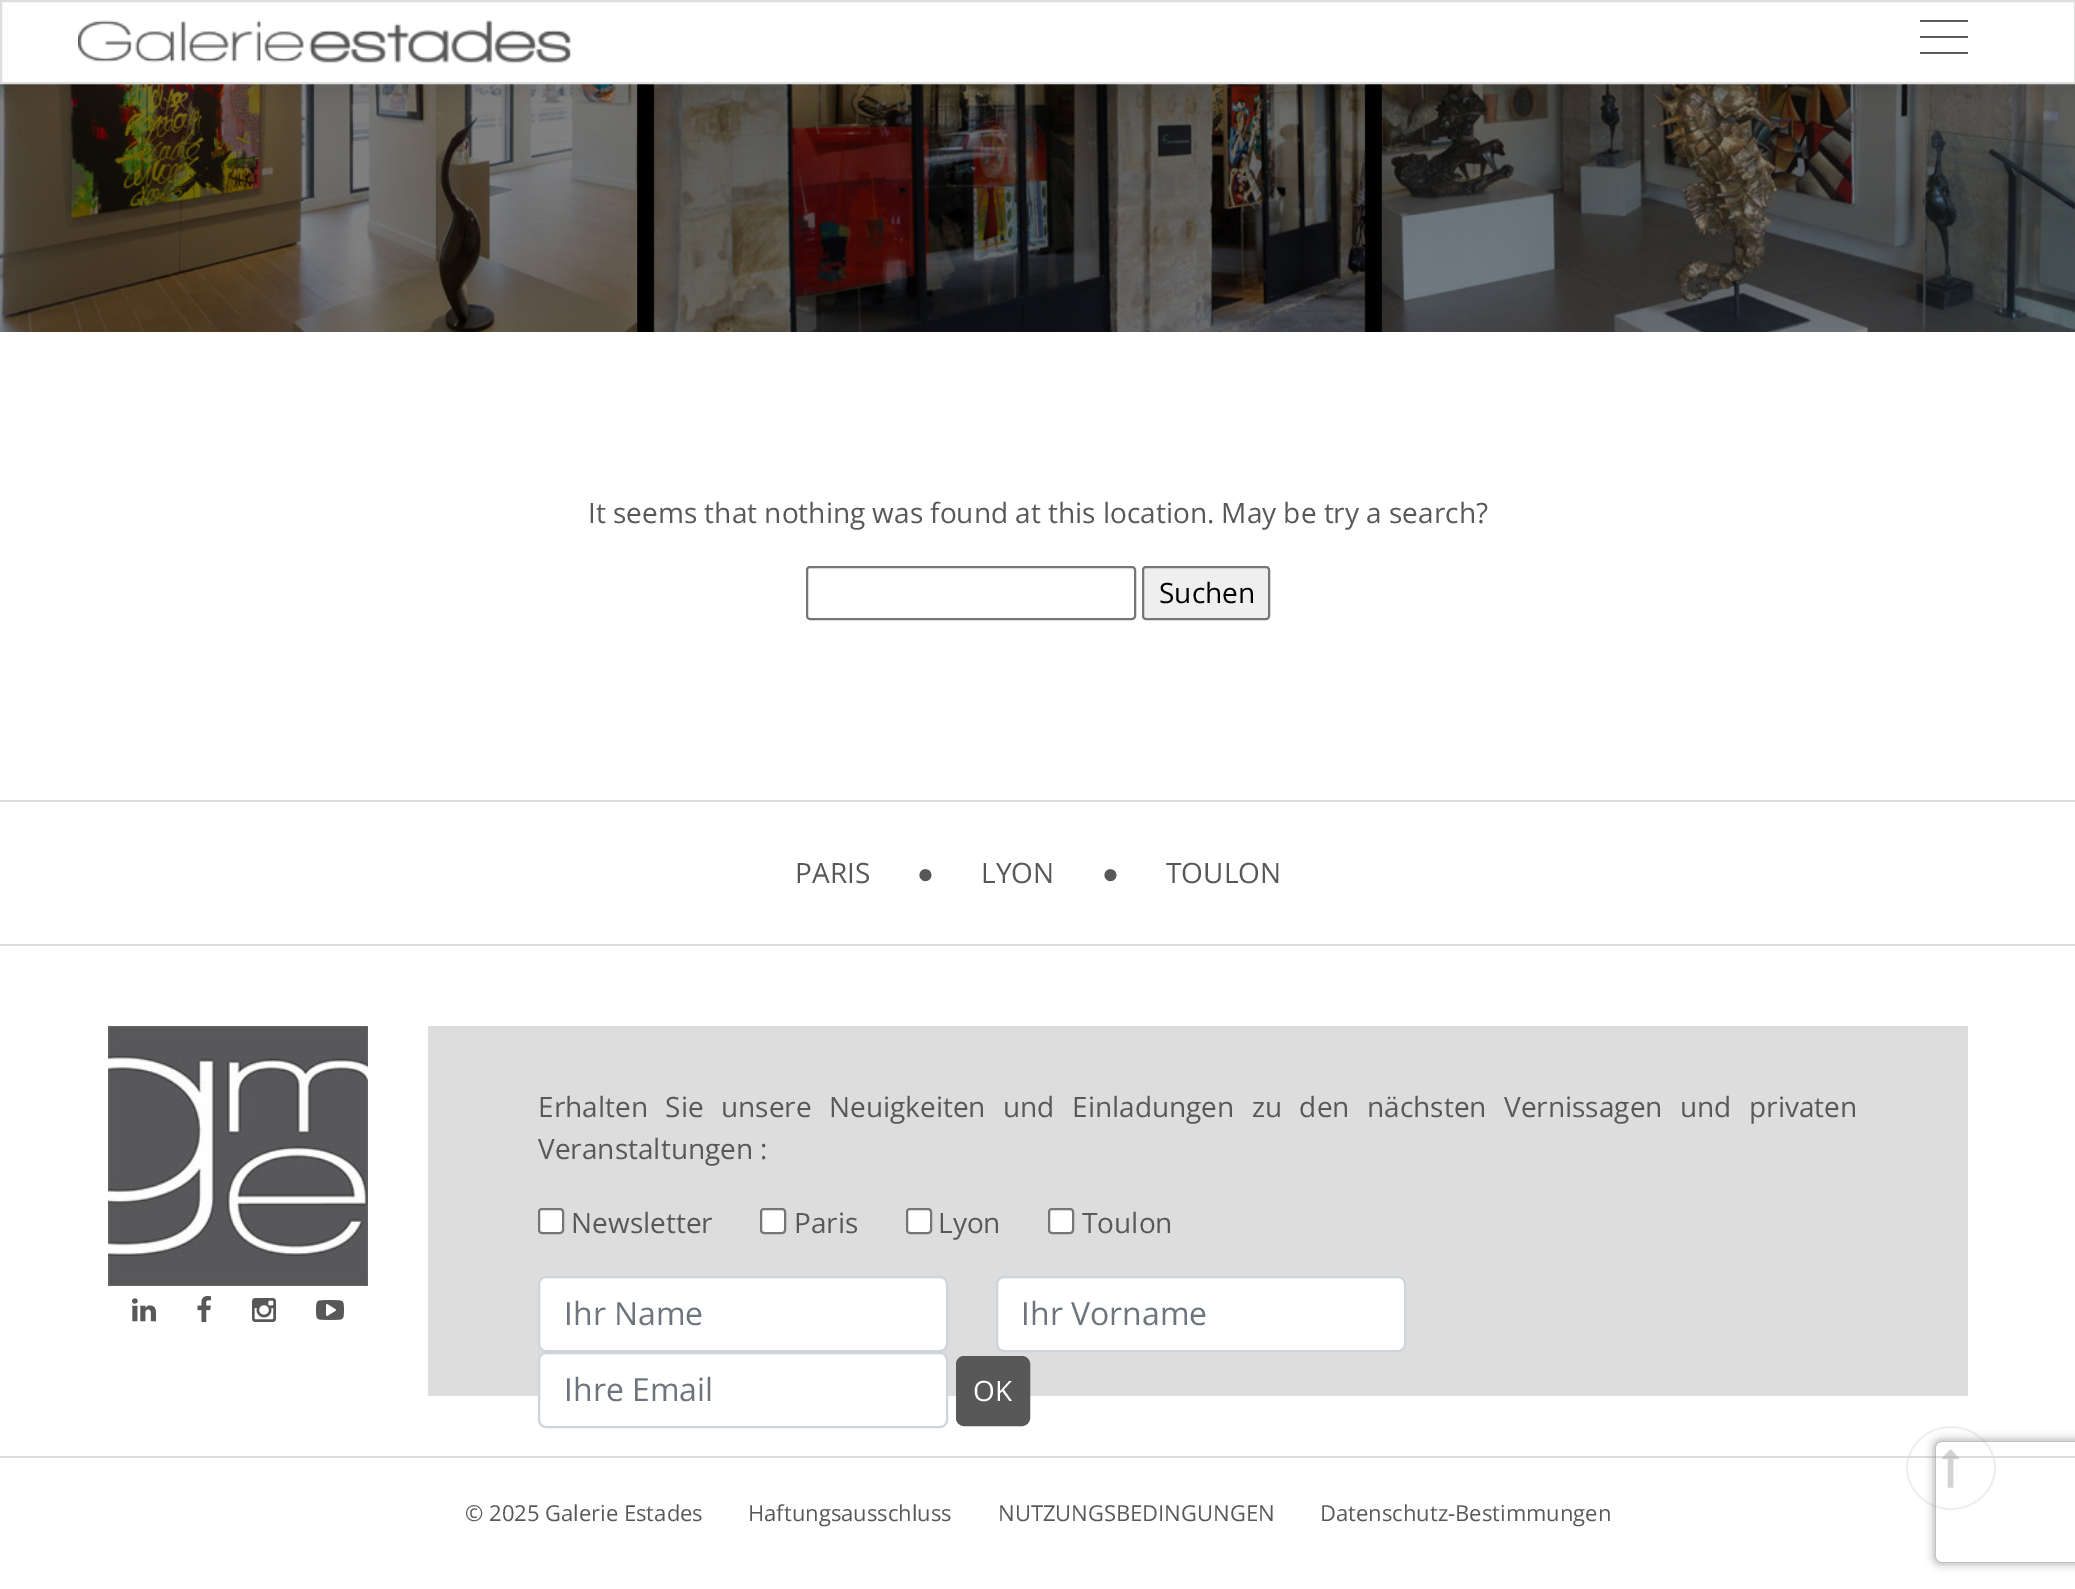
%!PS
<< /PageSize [2075 1589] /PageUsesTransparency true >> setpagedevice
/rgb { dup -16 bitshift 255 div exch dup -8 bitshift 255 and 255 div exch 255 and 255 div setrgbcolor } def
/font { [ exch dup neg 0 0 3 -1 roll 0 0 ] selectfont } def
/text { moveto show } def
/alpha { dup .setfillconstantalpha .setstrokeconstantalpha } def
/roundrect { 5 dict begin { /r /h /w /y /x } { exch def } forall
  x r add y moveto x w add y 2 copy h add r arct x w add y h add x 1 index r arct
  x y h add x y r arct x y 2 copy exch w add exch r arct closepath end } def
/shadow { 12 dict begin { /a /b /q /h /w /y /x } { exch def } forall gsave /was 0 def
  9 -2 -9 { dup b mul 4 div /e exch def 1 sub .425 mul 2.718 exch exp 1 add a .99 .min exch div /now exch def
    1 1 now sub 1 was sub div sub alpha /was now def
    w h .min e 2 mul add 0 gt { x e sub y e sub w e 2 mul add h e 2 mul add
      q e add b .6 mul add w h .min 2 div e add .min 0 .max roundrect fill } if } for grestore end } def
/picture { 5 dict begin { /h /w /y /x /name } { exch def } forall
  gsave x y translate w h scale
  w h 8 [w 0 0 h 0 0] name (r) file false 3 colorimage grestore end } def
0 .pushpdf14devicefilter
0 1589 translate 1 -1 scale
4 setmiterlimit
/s1 { /OpenSans-Regular 28 font 16#585858 rgb } def
/s2 { /OpenSans-Regular 28 font 16#000000 rgb } def
/s3 { /LiberationSans-Regular 28 font 16#585858 rgb } def
/s4 { /OpenSans-Regular 32 font 16#6C757D rgb } def
/s5 { /OpenSans-Regular 28 font 16#FFFFFF rgb } def
/s6 { /OpenSans-Regular 22 font 16#585858 rgb } def
16#FFFFFF rgb
0 0 2075 1589 rectfill
(pic2.raw) 0 84 2075 248 picture
16#000000 rgb
0 4 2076 84 0 13 0.1 shadow
16#FFFFFF rgb
1 1 moveto 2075 1 lineto 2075 83 lineto 1 83 lineto closepath gsave fill grestore
16#DDDDDD rgb
2 setlinewidth
stroke
(pic1.raw) 78 20 493 44 picture
16#5C5B5B rgb
1920 20 48 2 rectfill
1920 36 48 2 rectfill
1920 52 48 2 rectfill
s1
(It seems that nothing was found at this location. May be try a search?) 588 523 text
16#767676 rgb
807 567 328 52 3 roundrect stroke
16#EFEFEF rgb
1143 567 126 52 3 roundrect gsave fill grestore
16#767676 rgb
stroke
s2
(Suchen) 1159 603 text
16#DDDDDD rgb
0 800 2075 2 rectfill
0 944 2075 2 rectfill
s1
(PARIS) 795 883 text
s3
(●) 917 883 text
s1
(LYON) 981 883 text
s3
(●) 1102 883 text
s1
(TOULON) 1166 883 text
(pic3.raw) 108 1026 260 260 picture
(pic4.raw) 132 1298 24 24 picture
(pic5.raw) 197 1296 14 26 picture
(pic6.raw) 252 1298 24 24 picture
(pic7.raw) 316 1300 28 20 picture
16#DDDDDD rgb
428 1026 1540 370 rectfill
16#585858 rgb
538 1117 moveto 10.25 0 32 (Erhalten Sie unsere Neuigkeiten und Einladungen zu den nächsten Vernissagen und privaten) widthshow
(Veranstaltungen :) 538 1159 text
16#FFFFFF rgb
539 1209 24 24 3 roundrect gsave fill grestore
16#767676 rgb
stroke
s1
(Newsletter) 571 1233 text
16#FFFFFF rgb
761 1209 24 24 3 roundrect gsave fill grestore
16#767676 rgb
stroke
s1
(Paris) 794 1233 text
16#FFFFFF rgb
907 1209 24 24 3 roundrect gsave fill grestore
16#767676 rgb
stroke
s1
(Lyon) 938 1233 text
16#FFFFFF rgb
1049 1209 24 24 3 roundrect gsave fill grestore
16#767676 rgb
stroke
s1
(Toulon) 1082 1233 text
16#FFFFFF rgb
539 1277 408 74 7 roundrect gsave fill grestore
16#CED4DA rgb
stroke
s4
(Ihr Name) 564 1325 text
16#FFFFFF rgb
997 1277 408 74 7 roundrect gsave fill grestore
16#CED4DA rgb
stroke
s4
(Ihr Vorname) 1021 1325 text
16#FFFFFF rgb
539 1353 408 74 7 roundrect gsave fill grestore
16#CED4DA rgb
stroke
s4
(Ihre Email) 564 1401 text
16#585858 rgb
958 1358 70 66 6 roundrect gsave fill grestore
4 setlinewidth
stroke
s5
(OK) 973 1401 text
16#DDDDDD rgb
0 1456 2075 2 rectfill
0.47 alpha
2 setlinewidth
1951 1427 moveto 1975.5 1427 1995 1445.5 1995 1468 curveto 1995 1490.5 1975.5 1509 1951 1509 curveto 1926.5 1509 1907 1490.5 1907 1468 curveto 1907 1445.5 1926.5 1427 1951 1427 curveto closepath stroke
1 alpha
(pic8.raw) 1942 1449 17 39 picture
s6
(© 2025 Galerie Estades) 465 1521 text
(Haftungsausschluss) 748 1521 text
(NUTZUNGSBEDINGUNGEN) 998 1521 text
(Datenschutz-Bestimmungen) 1320 1521 text
gsave
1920 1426 moveto 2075 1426 lineto 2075 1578 lineto 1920 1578 lineto closepath 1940 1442 moveto 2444 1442 lineto 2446 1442 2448 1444 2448 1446 curveto 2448 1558 lineto 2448 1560 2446 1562 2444 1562 curveto 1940 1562 lineto 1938 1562 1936 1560 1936 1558 curveto 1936 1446 lineto 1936 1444 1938 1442 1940 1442 curveto closepath eoclip newpath
16#808080 rgb
1936 1442 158 120 4 5 1 shadow
grestore
.poppdf14devicefilter showpage
